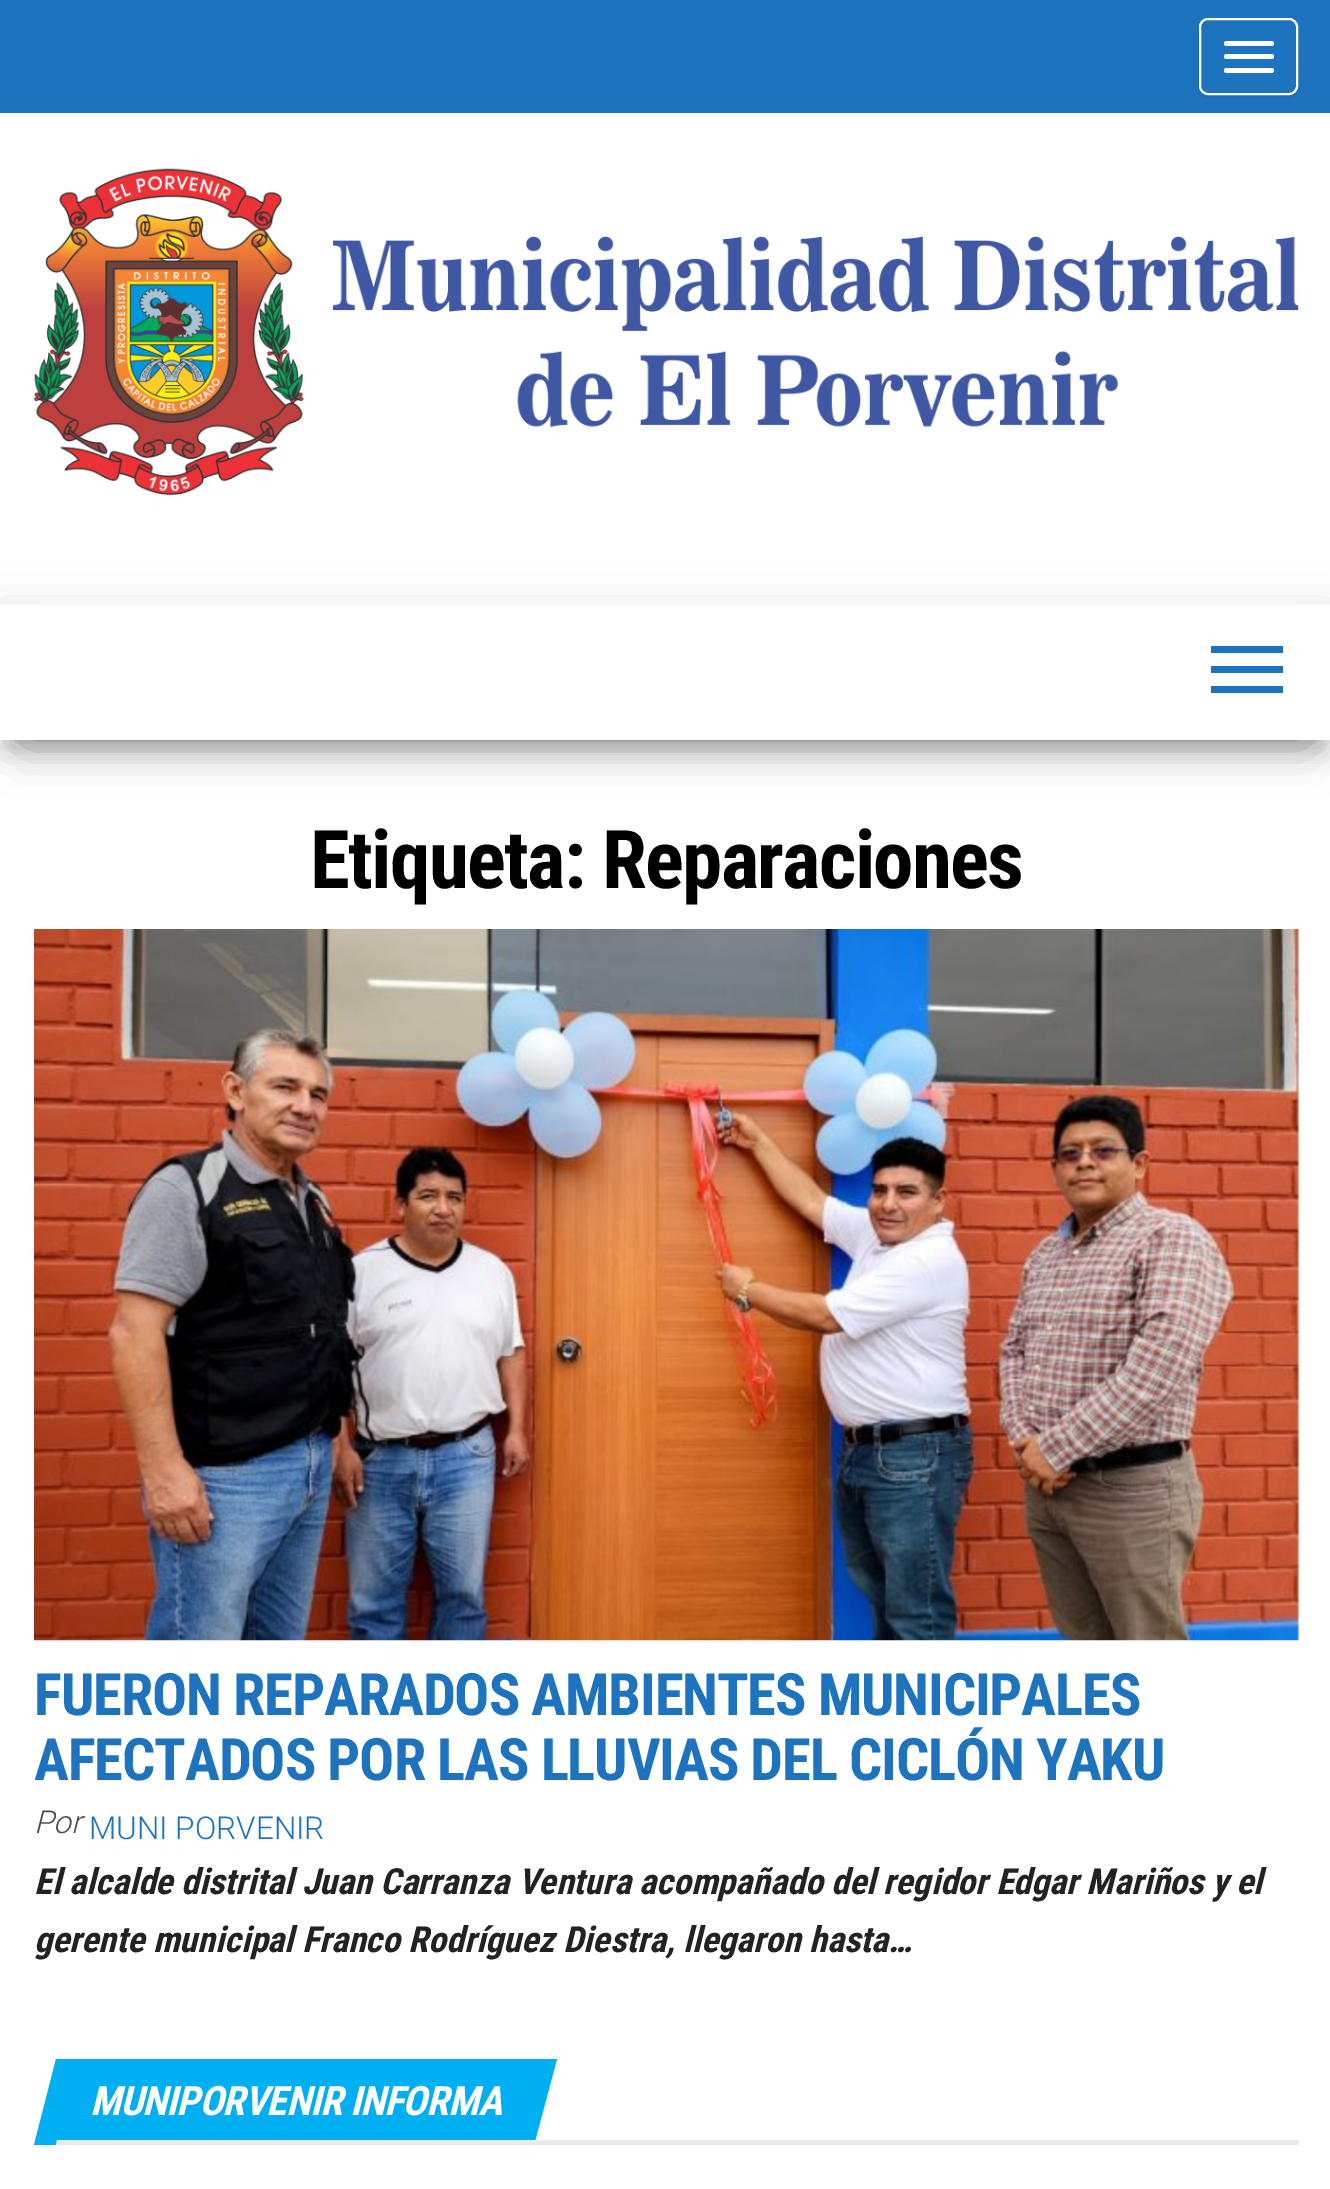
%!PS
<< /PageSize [1330 2189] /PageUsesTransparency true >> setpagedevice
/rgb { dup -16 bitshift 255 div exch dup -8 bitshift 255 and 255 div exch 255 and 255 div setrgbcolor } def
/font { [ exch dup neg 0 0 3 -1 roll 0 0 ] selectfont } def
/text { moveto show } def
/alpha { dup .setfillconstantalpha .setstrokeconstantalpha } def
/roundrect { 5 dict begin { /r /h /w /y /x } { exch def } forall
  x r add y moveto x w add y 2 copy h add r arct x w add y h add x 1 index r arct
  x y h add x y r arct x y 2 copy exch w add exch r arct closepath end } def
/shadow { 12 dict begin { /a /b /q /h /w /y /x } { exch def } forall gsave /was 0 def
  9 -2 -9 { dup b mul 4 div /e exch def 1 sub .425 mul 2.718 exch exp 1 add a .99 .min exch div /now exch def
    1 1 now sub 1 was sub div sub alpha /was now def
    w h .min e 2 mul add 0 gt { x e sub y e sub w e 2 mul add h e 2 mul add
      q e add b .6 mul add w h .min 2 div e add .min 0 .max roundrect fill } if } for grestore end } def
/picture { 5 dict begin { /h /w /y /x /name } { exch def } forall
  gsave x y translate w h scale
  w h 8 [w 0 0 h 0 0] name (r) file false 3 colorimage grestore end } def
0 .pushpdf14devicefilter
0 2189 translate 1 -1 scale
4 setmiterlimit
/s1 { /Roboto-LightItalic 31.5 font 16#4D4D4D rgb } def
/s2 { /Roboto-Light 31.5 font 16#1E73BE rgb } def
/s3 { /RobotoCondensed-BoldItalic 36 font 16#222222 rgb } def
16#FFFFFF rgb
0 0 1330 2189 rectfill
16#1E73BE rgb
0 0 1330 113 rectfill
gsave
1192 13 moveto 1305 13 lineto 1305 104 lineto 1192 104 lineto closepath 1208 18 moveto 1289 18 lineto 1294 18 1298 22 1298 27 curveto 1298 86 lineto 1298 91 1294 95 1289 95 curveto 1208 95 lineto 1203 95 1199 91 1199 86 curveto 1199 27 lineto 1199 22 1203 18 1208 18 curveto closepath eoclip newpath
16#000000 rgb
1199 20 99 77 9 2 0.15 shadow
grestore
16#FFFFFF rgb
2 setlinewidth
1200 19 97 75 8 roundrect stroke
1224 41 50 5 2.5 roundrect fill
1224 54 50 5 2.5 roundrect fill
1224 68 50 5 2.5 roundrect fill
(pic1.raw) 33 168 1266 327 picture
16#000000 rgb
11 635 1310 112 0 11 0.2 shadow
0 612 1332 135 0 22.5 0.12 shadow
27 655 1278 81 0 22.5 0.42 shadow
16#FFFFFF rgb
0 605 1330 135 rectfill
16#1E73BE rgb
1211 646 72 7 rectfill
1211 666 72 7 rectfill
1211 686 72 7 rectfill
/RobotoCondensed-Bold 81 font
16#000000 rgb
310 888 moveto -1.6 0 (Etiqueta: Reparaciones) ashow
(pic2.raw) 34 929 1265 712 picture
/RobotoCondensed-Bold 58.5 font
16#1E73BE rgb
34 1715 moveto -1.15 0 (FUERON REPARADOS AMBIENTES MUNICIPALES) ashow
34 1780 moveto -1.15 0 (AFECTADOS POR LAS LLUVIAS DEL CICLÓN YAKU) ashow
s1
(Por) 34 1833 text
s2
(MUNI PORVENIR) 89 1839 text
s3
(El alcalde distrital Juan Carranza Ventura acompañado del regidor Edgar Mariños y el) 34 1894 text
(gerente municipal Franco Rodríguez Diestra, llegaron hasta…) 34 1952 text
16#00AFF2 rgb
56 2059 moveto 557 2059 lineto 534 2145 lineto 34 2145 lineto closepath fill
/RobotoCondensed-BoldItalic 40.5 font
16#FFFFFF rgb
90 2115 moveto -0.8 0 (MUNIPORVENIR INFORMA) ashow
16#EAEAEA rgb
57 2140 moveto 1299 2140 lineto 1298 2145 lineto 56 2145 lineto closepath fill
.poppdf14devicefilter showpage
